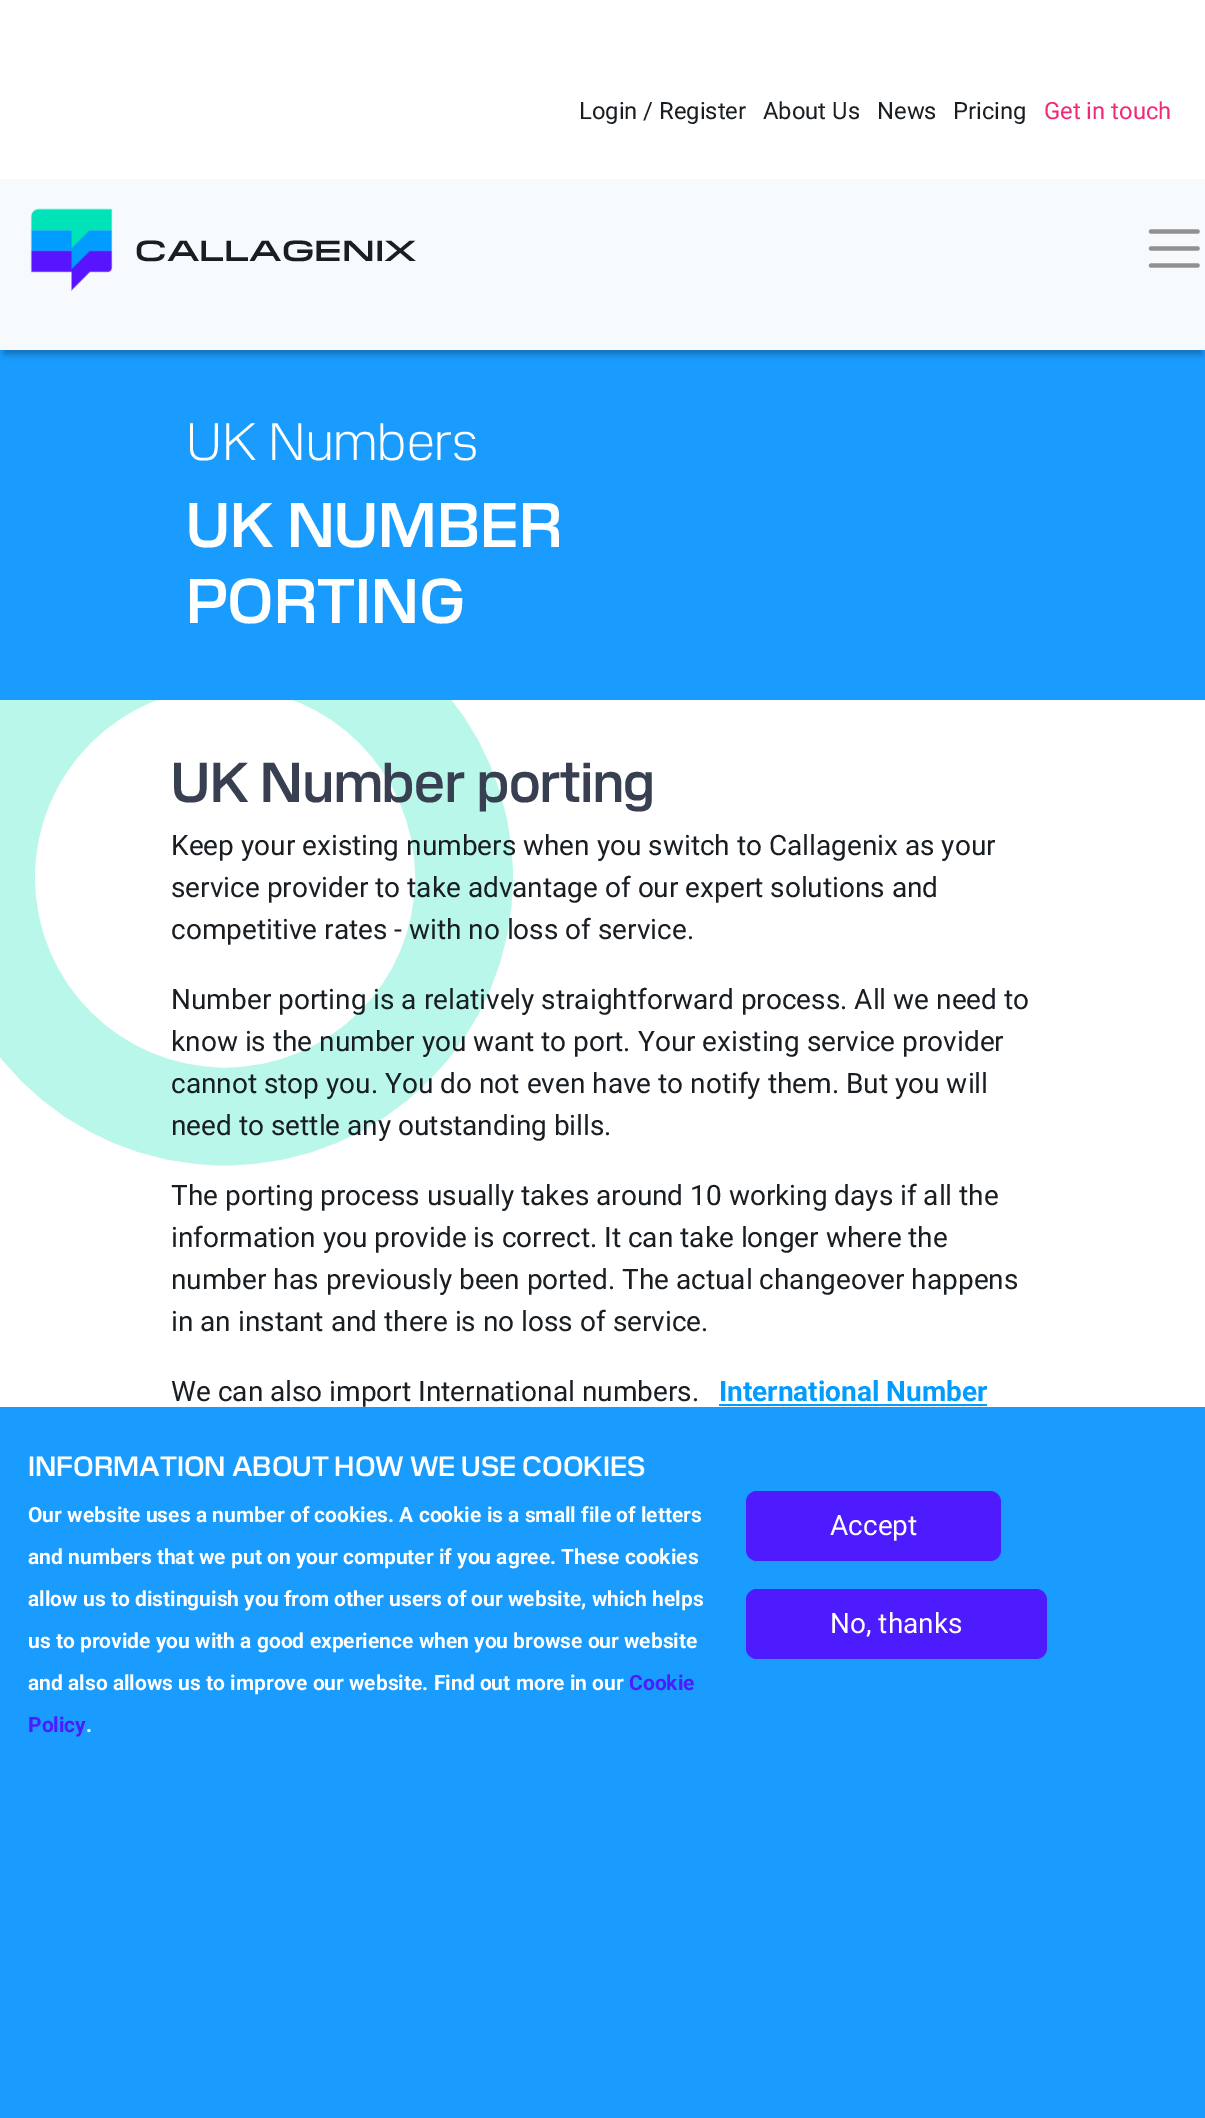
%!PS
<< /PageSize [1205 2118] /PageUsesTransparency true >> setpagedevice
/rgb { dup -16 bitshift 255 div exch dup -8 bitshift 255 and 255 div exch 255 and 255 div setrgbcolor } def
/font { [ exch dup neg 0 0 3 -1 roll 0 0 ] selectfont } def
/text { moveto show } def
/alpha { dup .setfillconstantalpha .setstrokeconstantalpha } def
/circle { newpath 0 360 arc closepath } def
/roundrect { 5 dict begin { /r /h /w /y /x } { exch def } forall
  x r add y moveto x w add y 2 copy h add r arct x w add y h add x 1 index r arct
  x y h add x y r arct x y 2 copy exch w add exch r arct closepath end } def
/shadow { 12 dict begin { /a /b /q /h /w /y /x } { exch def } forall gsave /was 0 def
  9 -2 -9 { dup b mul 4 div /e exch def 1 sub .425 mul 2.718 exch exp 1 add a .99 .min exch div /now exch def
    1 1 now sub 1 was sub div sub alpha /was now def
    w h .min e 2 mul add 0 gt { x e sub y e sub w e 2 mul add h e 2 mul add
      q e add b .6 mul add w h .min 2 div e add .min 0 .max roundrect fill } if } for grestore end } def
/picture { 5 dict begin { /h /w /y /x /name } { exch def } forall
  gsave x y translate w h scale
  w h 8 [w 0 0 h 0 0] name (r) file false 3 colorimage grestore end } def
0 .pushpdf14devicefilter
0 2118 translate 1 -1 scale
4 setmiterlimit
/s1 { /Roboto-Regular 23.75 font 16#191E23 rgb } def
/s2 { /Roboto-Regular 23.75 font 16#EF2B76 rgb } def
/s3 { /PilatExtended-SemiBold 29 font 16#191E23 rgb } def
/s4 { /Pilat-Light 52.5 font 16#FFFFFF rgb } def
/s5 { /Pilat-SemiBold 63 font 16#FFFFFF rgb } def
/s6 { /Pilat-SemiBold 56 font 16#373F51 rgb } def
/s7 { /Roboto-Regular 28 font 16#191E23 rgb } def
/s8 { /Roboto-Bold 28 font 16#029CFE rgb } def
/s9 { /Pilat-SemiBold 28 font 16#FFFFFF rgb } def
/s10 { /Roboto-Bold 21 font 16#FFFFFF rgb } def
/s11 { /Roboto-Bold 21 font 16#4E1BFE rgb } def
/s12 { /Roboto-Regular 28 font 16#FFFFFF rgb } def
16#FFFFFF rgb
0 0 1205 2118 rectfill
s1
(Login / Register) 579 119 text
(About Us) 763 119 text
(News) 877 119 text
(Pricing) 953 119 text
s2
(Get in touch) 1044 119 text
16#B8F7EA rgb
97.6 setlinewidth
225 877.5 239 circle stroke
16#199CFE rgb
0 350 1205 350 rectfill
16#000000 rgb
4 189 1198 165 0 3.5 0.3 shadow
16#F7FAFC rgb
0 179 1205 171 rectfill
(pic1.raw) 30 208 83 83 picture
s3
(CALLAGENIX) 135 261 text
16#909091 rgb
4.2 setlinewidth
1 setlinecap
1151 231.5 moveto 1197.5 231.5 lineto 1151 248.5 moveto 1197.5 248.5 lineto 1151 265.5 moveto 1197.5 265.5 lineto stroke
s4
(UK Numbers) 186 460 text
s5
(UK NUMBER) 186 547 text
(PORTING) 186 623 text
s6
(UK Number porting) 171 802 text
s7
(Keep your existing numbers when you switch to Callagenix as your) 171 855 text
(service provider to take advantage of our expert solutions and) 171 897 text
(competitive rates - with no loss of service.) 171 939 text
(Number porting is a relatively straightforward process. All we need to) 171 1009 text
(know is the number you want to port. Your existing service provider) 171 1051 text
(cannot stop you. You do not even have to notify them. But you will) 171 1093 text
(need to settle any outstanding bills.) 171 1135 text
(The porting process usually takes around 10 working days if all the) 171 1205 text
(information you provide is correct. It can take longer where the) 171 1247 text
(number has previously been ported. The actual changeover happens) 171 1289 text
(in an instant and there is no loss of service.) 171 1331 text
(We can also import International numbers.) 171 1401 text
s8
(International Number) 719 1401 text
719 1404 268 2 rectfill
16#199CFE rgb
0 1407 1205 711 rectfill
s9
(INFORMATION ABOUT HOW WE USE COOKIES) 28 1476 text
s10
(Our website uses a number of cookies. A cookie is a small file of letters) 28 1522 text
(and numbers that we put on your computer if you agree. These cookies) 28 1564 text
(allow us to distinguish you from other users of our website, which helps) 28 1606 text
(us to provide you with a good experience when you browse our website) 28 1648 text
(and also allows us to improve our website. Find out more in our) 28 1690 text
s11
(Cookie) 629 1690 text
(Policy) 28 1732 text
s10
(.) 86 1732 text
16#4E1BFE rgb
746 1491 255 70 11 roundrect fill
s12
(Accept) 830 1535 text
16#4E1BFE rgb
746 1589 301 70 11 roundrect fill
s12
(No, thanks) 830 1633 text
.poppdf14devicefilter showpage
